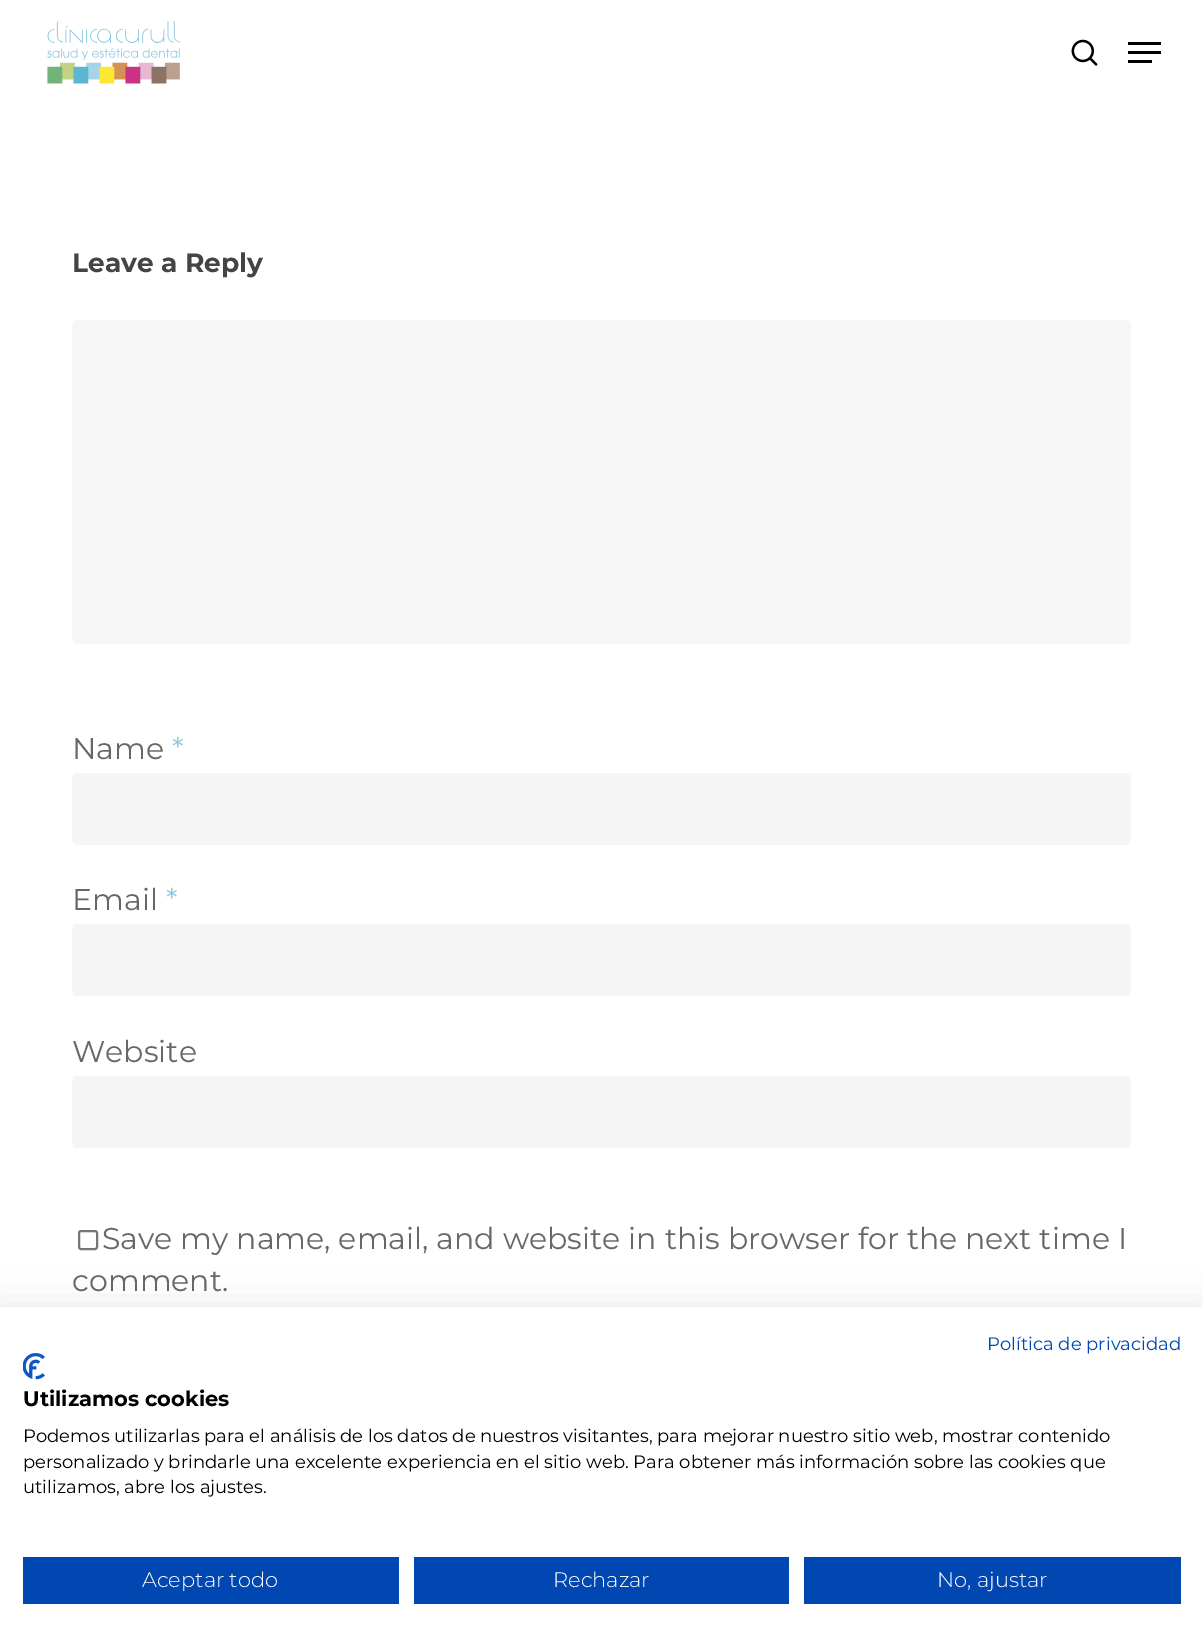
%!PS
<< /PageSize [1203 1644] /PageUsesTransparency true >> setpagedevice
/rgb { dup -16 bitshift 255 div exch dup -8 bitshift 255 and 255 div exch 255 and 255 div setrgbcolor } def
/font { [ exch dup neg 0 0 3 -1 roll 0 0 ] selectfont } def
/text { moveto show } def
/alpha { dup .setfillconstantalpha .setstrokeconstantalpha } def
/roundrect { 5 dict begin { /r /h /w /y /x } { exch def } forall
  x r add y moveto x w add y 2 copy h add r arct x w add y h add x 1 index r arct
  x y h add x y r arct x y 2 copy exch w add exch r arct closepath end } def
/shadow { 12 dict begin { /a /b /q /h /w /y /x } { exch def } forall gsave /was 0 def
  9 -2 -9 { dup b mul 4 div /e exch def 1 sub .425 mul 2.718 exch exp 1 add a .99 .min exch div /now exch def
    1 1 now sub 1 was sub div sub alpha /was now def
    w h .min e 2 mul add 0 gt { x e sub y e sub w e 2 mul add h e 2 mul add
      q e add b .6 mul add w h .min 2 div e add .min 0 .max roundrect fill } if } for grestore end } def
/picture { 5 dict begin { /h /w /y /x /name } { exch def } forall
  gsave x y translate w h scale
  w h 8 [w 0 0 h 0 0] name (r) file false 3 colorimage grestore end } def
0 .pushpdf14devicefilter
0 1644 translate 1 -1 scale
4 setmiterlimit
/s1 { /Montserrat-Bold 26.5 font 16#444444 rgb } def
/s2 { /Montserrat-Regular 30 font 16#676767 rgb } def
/s3 { /Montserrat-Regular 30 font 16#92C8E1 rgb } def
/s4 { /Montserrat-Regular 18 font 16#0047B2 rgb } def
/s5 { /Montserrat-Bold 21 font 16#000000 rgb } def
/s6 { /Montserrat-Regular 18 font 16#000000 rgb } def
/s7 { /Montserrat-Light 21 font 16#FFFFFF rgb } def
16#FFFFFF rgb
0 0 1203 1644 rectfill
(pic1.raw) 47 21 133 63 picture
(pic2.raw) 1071 39 27 27 picture
16#000000 rgb
1128 42 33 3 rectfill
1128 60 24 3 rectfill
1128 51 33 3 rectfill
s1
(Leave a Reply) 72 272 text
16#F6F6F6 rgb
72 320 1059 324 6 roundrect fill
s2
(Name) 72 759 text
s3
(*) 172 759 text
16#F5F5F5 rgb
72 773 1059 72 6 roundrect fill
s2
(Email) 72 910 text
s3
(*) 166 910 text
16#F5F5F5 rgb
72 924 1059 72 6 roundrect fill
s2
(Website) 72 1062 text
16#F5F5F5 rgb
72 1076 1059 72 6 roundrect fill
16#767676 rgb
2 setlinewidth
79 1231 18 18 2 roundrect stroke
s2
(Save my name, email, and website in this browser for the next time I) 102 1249 text
(comment.) 72 1291 text
16#000000 rgb
0 1307 1203 337 0 18 0.1 shadow
16#FFFFFF rgb
0 1307 1203 337 rectfill
s4
(Política de privacidad) 987 1350 text
(pic3.raw) 23 1353 22 27 picture
s5
(Utilizamos cookies) 23 1406 text
s6
(Podemos utilizarlas para el análisis de los datos de nuestros visitantes, para mejorar nuestro sitio web, mostrar contenido) 23 1442 text
(personalizado y brindarle una excelente experiencia en el sitio web. Para obtener más información sobre las cookies que) 23 1468 text
(utilizamos, abre los ajustes.) 23 1493 text
16#0047B2 rgb
23 1557 376 47 rectfill
s7
(Aceptar todo) 142 1587 text
16#0047B2 rgb
414 1557 375 47 rectfill
s7
(Rechazar) 553 1587 text
16#0047B2 rgb
804 1557 377 47 rectfill
s7
(No, ajustar) 937 1587 text
.poppdf14devicefilter showpage
